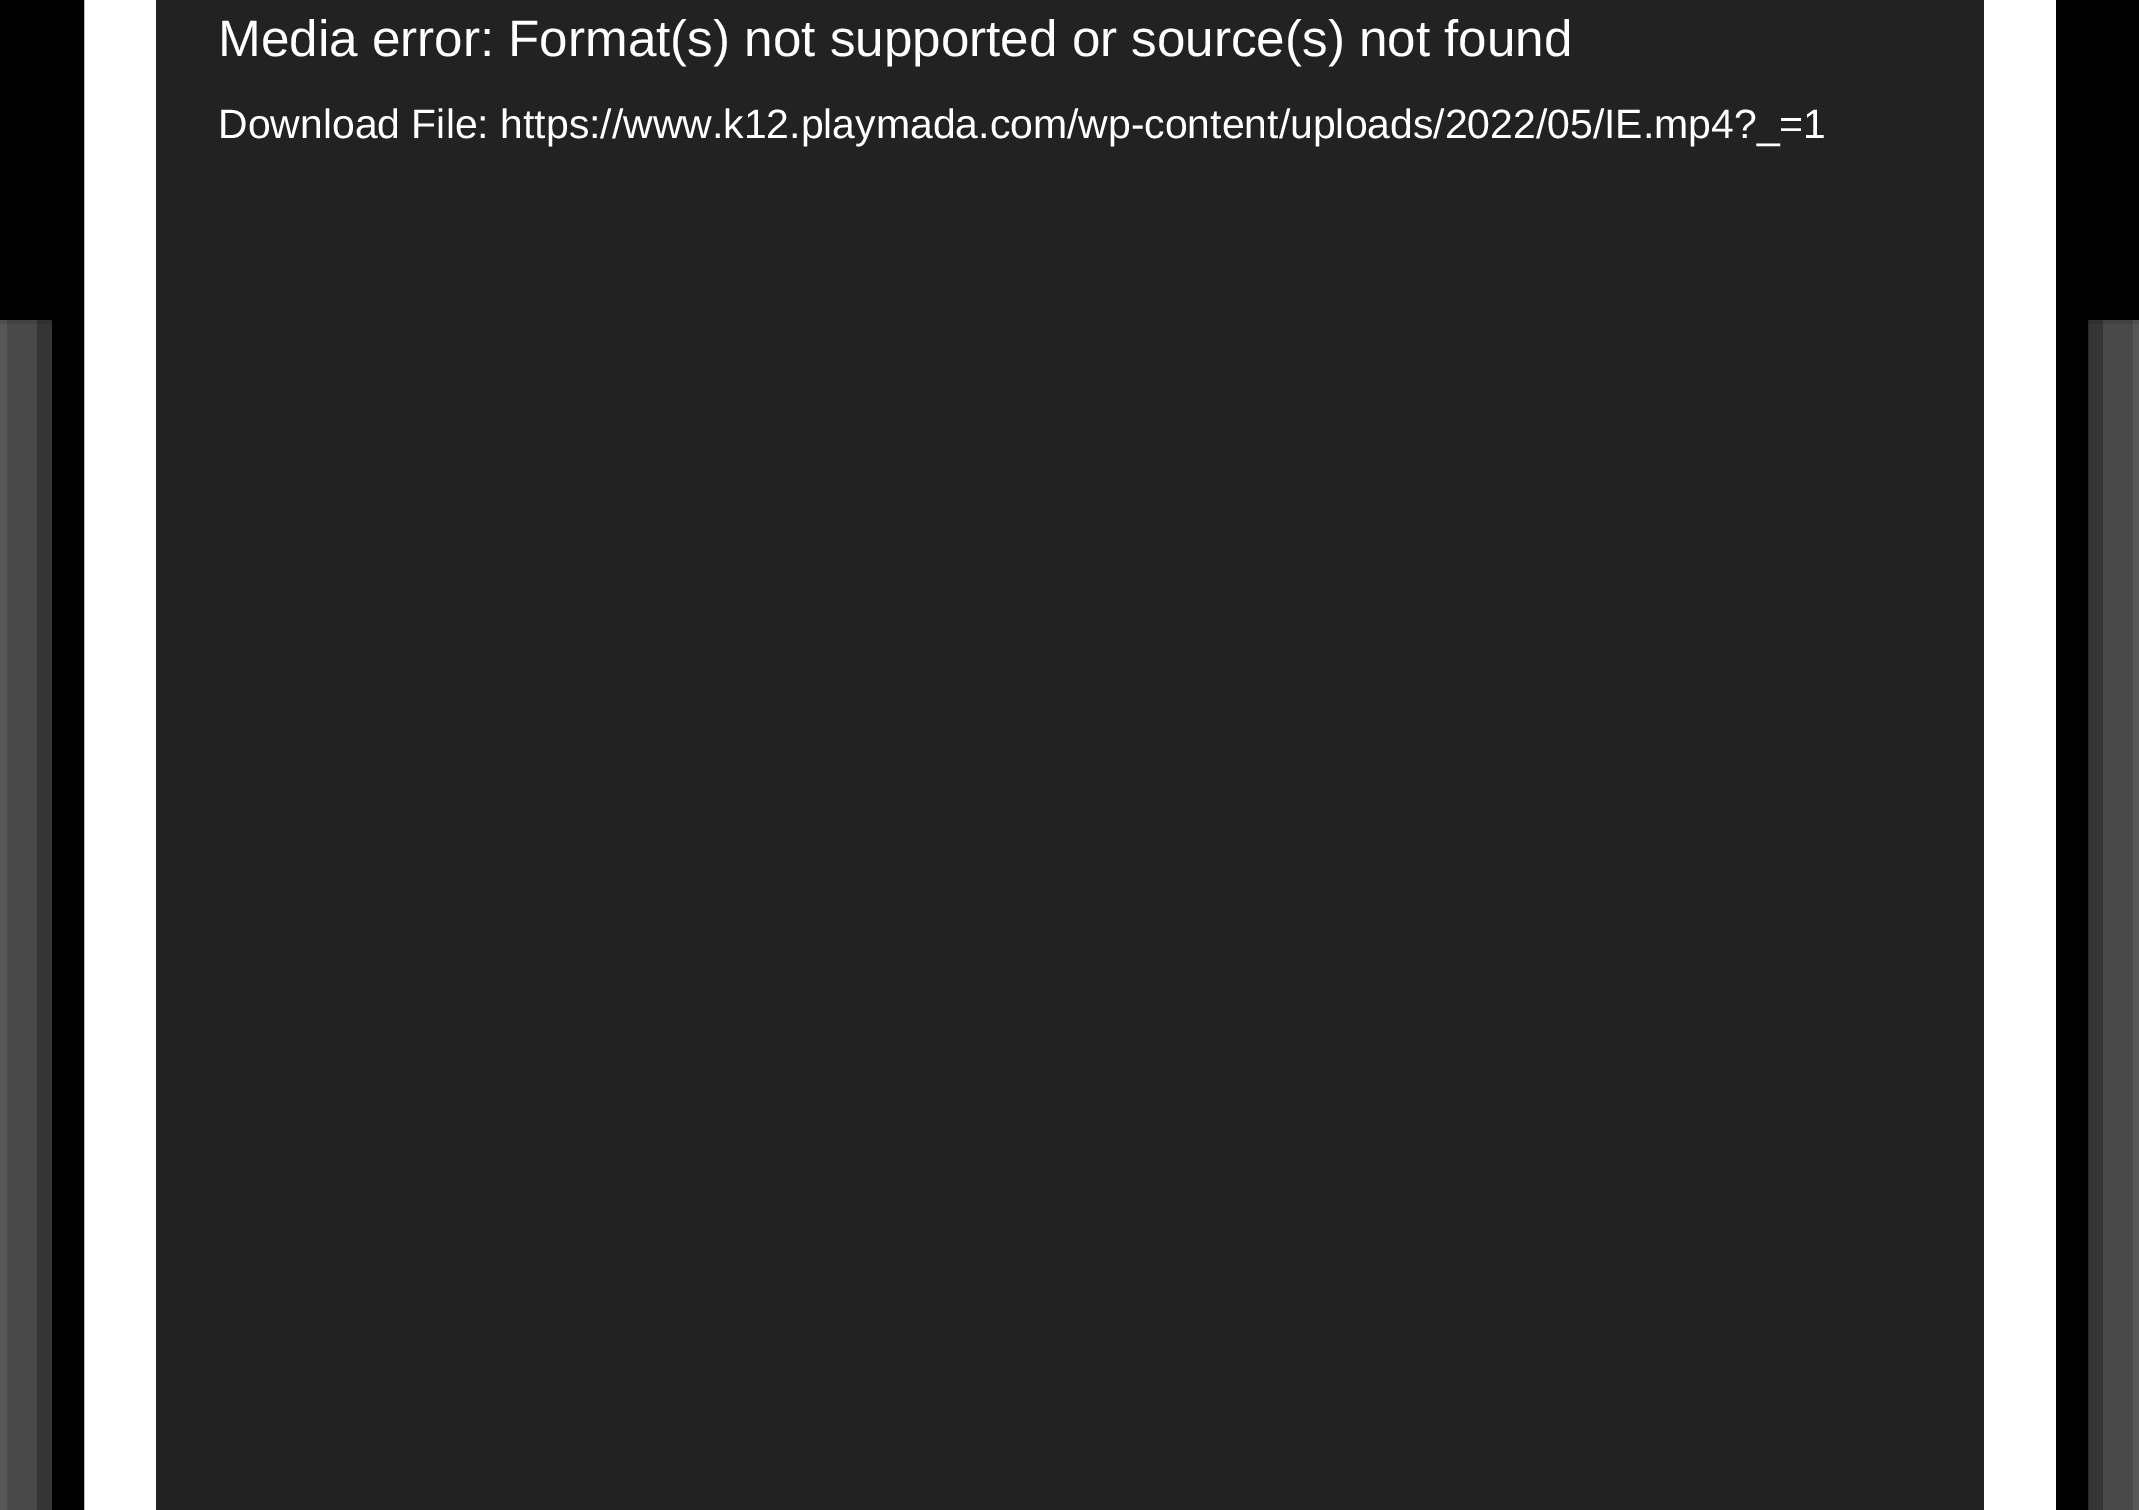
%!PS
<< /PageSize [2139 1510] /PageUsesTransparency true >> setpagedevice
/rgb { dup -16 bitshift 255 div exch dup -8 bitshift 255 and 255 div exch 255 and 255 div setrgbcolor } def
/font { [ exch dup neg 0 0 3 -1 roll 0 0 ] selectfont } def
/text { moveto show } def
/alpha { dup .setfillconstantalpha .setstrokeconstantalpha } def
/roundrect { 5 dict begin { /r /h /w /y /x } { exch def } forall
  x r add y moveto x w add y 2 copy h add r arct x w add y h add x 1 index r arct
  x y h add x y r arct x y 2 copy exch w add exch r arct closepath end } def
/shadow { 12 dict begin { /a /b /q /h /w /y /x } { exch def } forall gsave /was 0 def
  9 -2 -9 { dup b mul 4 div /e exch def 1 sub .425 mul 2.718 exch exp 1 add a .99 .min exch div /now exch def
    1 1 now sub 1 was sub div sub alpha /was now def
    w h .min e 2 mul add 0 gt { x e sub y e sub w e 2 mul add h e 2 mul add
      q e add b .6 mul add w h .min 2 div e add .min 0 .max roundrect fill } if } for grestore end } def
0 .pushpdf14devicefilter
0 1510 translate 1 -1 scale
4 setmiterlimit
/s1 { /LiberationSans-Regular 51.2 font 16#FFFFFF rgb } def
/s2 { /LiberationSans-Regular 40.95 font 16#FFFFFF rgb } def
16#666666 rgb
0 0 2139 1510 rectfill
16#5C5C5C rgb
0 320 2139 4 rectfill
16#000000 rgb
0 0 2139 320 rectfill
16#020202 rgb
52 -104 2036 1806 12 60 1 shadow
16#FFFFFF rgb
84 0 1972 1510 rectfill
16#000000 rgb
32 setlinewidth
68 -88 moveto 2072 -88 lineto 2072 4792 lineto 68 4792 lineto closepath stroke
16#222222 rgb
156 0 1828 1510 rectfill
s1
(Media error: Format\(s\) not supported or source\(s\) not found) 218 56 text
s2
(Download File: https://www.k12.playmada.com/wp-content/uploads/2022/05/IE.mp4?_=1) 218 138 text
.poppdf14devicefilter showpage
